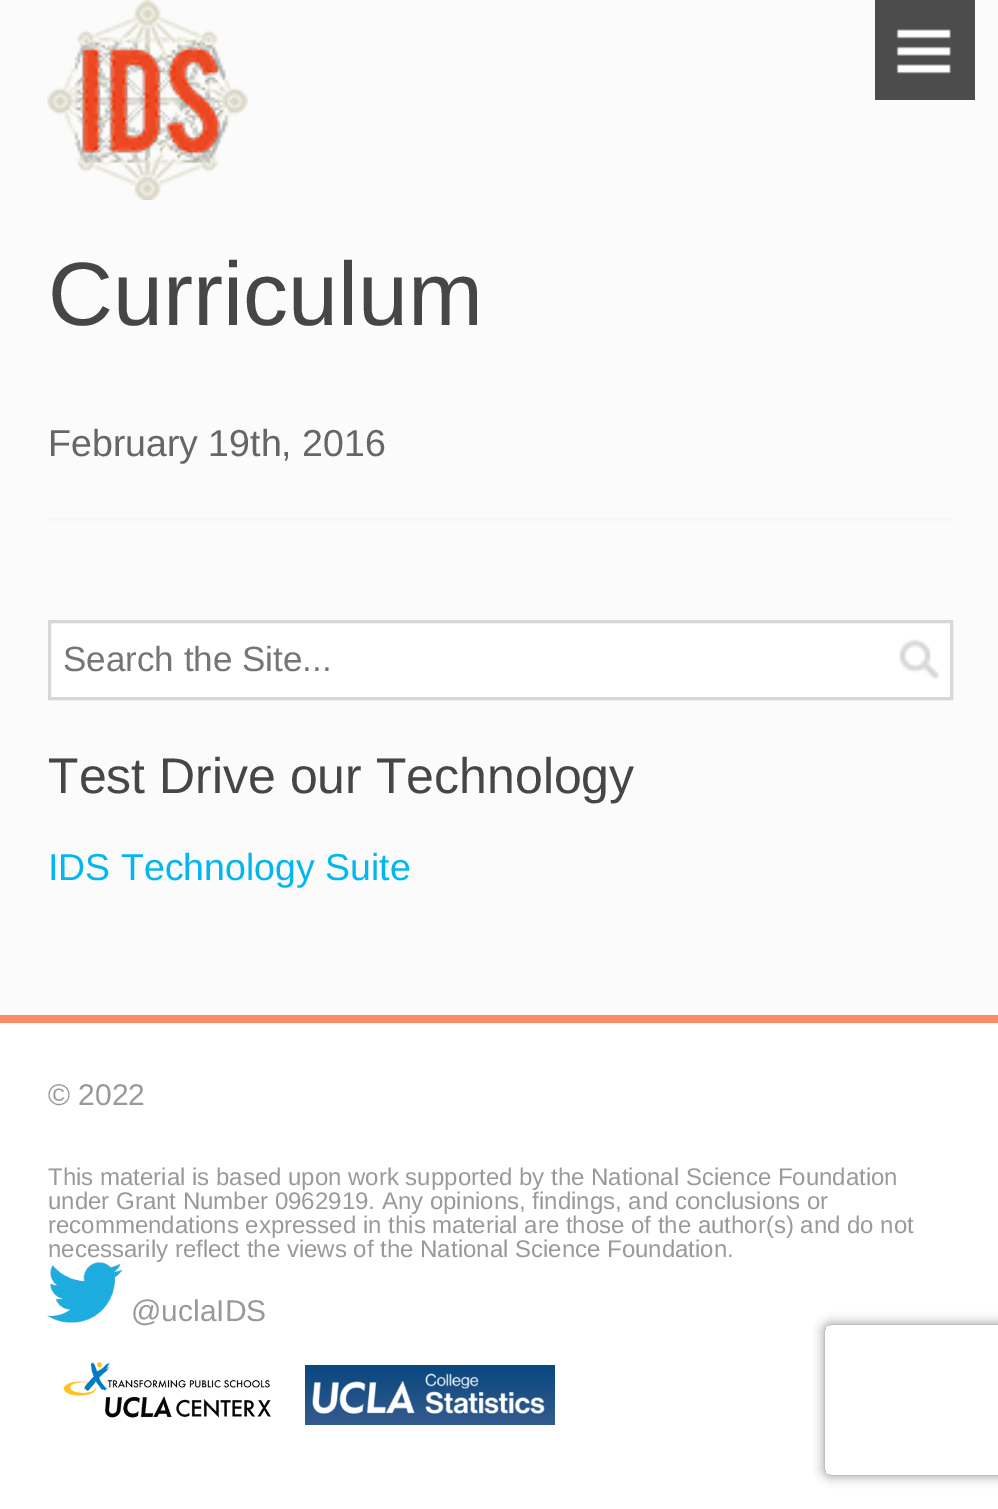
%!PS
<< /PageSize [998 1509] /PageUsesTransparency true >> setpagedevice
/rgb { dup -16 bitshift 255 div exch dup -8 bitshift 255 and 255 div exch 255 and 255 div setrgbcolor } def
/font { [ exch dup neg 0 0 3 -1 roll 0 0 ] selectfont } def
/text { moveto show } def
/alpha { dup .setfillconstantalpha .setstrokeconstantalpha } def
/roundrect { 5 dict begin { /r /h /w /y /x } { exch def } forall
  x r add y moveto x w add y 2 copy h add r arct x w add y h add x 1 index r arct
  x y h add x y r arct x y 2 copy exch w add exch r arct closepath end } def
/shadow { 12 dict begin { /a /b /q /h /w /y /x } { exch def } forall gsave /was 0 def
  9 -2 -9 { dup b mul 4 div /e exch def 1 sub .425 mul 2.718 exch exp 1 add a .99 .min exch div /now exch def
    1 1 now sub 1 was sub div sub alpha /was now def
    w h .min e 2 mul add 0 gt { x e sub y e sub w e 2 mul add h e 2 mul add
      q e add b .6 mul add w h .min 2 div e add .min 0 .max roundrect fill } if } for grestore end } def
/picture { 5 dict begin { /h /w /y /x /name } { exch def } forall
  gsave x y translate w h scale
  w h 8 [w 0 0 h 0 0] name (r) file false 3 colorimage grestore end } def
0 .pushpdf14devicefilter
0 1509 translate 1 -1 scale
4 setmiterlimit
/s1 { /LiberationSans-Regular 90 font 16#464646 rgb } def
/s2 { /LiberationSans-Regular 37.5 font 16#666666 rgb } def
/s3 { /LiberationSans-Regular 35 font 16#757575 rgb } def
/s4 { /LiberationSans-Regular 50 font 16#464646 rgb } def
/s5 { /LiberationSans-Regular 37.5 font 16#04B6F0 rgb } def
/s6 { /LiberationSans-Regular 30 font 16#999999 rgb } def
/s7 { /LiberationSans-Regular 24 font 16#999999 rgb } def
16#FFFFFF rgb
0 0 998 1509 rectfill
16#FBFBFB rgb
0 0 998 1015 rectfill
(pic1.raw) 47 0 201 200 picture
16#4C4C4C rgb
875 0 100 100 rectfill
(pic2.raw) 896 29 55 45 picture
s1
(Curriculum) 48 325 text
16#F7F7F7 rgb
48 518 905 3 rectfill
s2
(February 19th, 2016) 48 456 text
16#FFFFFF rgb
51 623 899 74 rectfill
(pic3.raw) 899 639 42 41 picture
16#D7D7D7 rgb
3 setlinewidth
49.5 621.5 902 77 rectstroke
s3
(Search the Site...) 63 671 text
s4
(Test Drive our Technology) 48 793 text
s5
(IDS Technology Suite) 48 880 text
16#FA8D67 rgb
0 1015 998 8 rectfill
s6
(© 2022) 48 1105 text
s7
(This material is based upon work supported by the National Science Foundation) 48 1185 text
(under Grant Number 0962919. Any opinions, findings, and conclusions or) 48 1209 text
(recommendations expressed in this material are those of the author\(s\) and do not) 48 1233 text
(necessarily reflect the views of the National Science Foundation.) 48 1257 text
(pic4.raw) 47 1262 76 61 picture
s6
(@uclaIDS) 131 1321 text
(pic5.raw) 63 1362 208 56 picture
(pic6.raw) 305 1365 250 60 picture
gsave
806 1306 moveto 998 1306 lineto 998 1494 lineto 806 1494 lineto closepath 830 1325 moveto 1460 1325 lineto 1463 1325 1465 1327 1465 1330 curveto 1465 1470 lineto 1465 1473 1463 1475 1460 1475 curveto 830 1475 lineto 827 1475 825 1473 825 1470 curveto 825 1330 lineto 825 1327 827 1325 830 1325 curveto closepath eoclip newpath
16#808080 rgb
825 1325 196 150 5 6 1 shadow
grestore
.poppdf14devicefilter showpage
